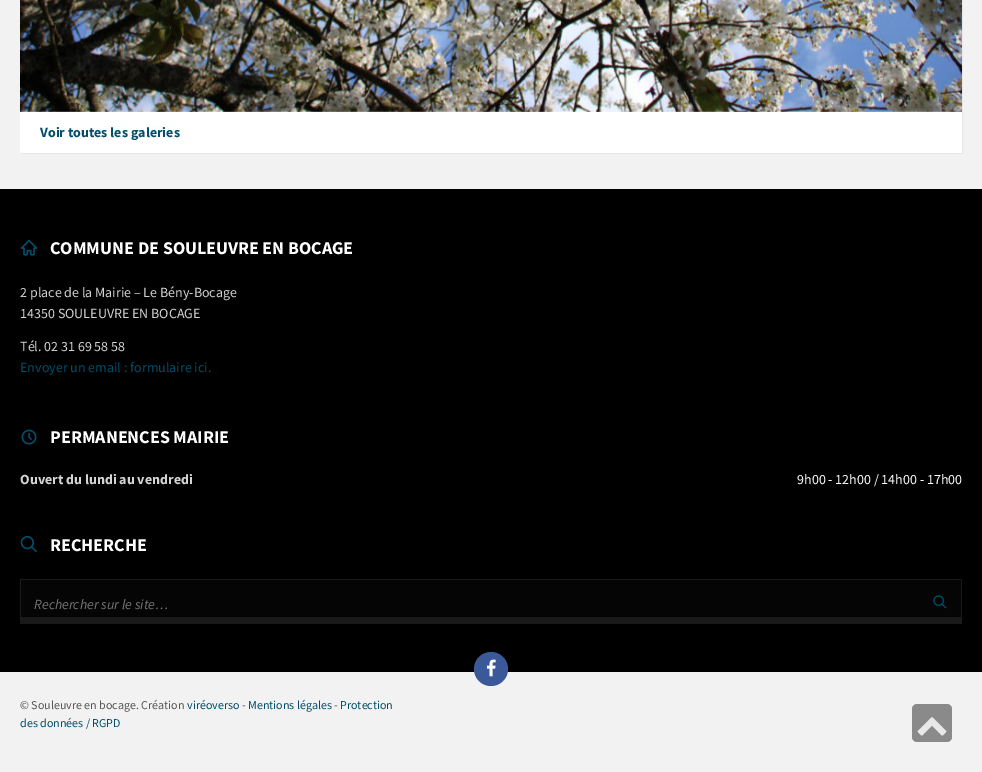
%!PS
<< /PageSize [982 772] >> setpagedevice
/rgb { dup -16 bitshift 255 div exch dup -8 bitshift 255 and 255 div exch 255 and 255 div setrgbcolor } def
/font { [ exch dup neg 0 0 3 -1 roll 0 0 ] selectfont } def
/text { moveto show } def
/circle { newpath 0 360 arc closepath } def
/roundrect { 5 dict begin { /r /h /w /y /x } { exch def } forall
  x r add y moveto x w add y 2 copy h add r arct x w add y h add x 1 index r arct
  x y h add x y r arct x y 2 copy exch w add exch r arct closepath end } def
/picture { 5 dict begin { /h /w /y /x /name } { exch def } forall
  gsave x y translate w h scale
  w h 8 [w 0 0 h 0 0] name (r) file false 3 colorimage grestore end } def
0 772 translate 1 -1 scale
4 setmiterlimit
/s1 { /SourceSansPro-Bold 14 font 16#034E6A rgb } def
/s2 { /SourceSansPro-Bold 18 font 16#FFFFFF rgb } def
/s3 { /SourceSansPro-Regular 14 font 16#D4D4D4 rgb } def
/s4 { /SourceSansPro-Regular 14 font 16#034E6A rgb } def
/s5 { /SourceSansPro-Bold 14 font 16#D4D4D4 rgb } def
/s6 { /SourceSansPro-Regular 14 font 16#FFFFFF rgb } def
/s7 { /SourceSansPro-Italic 14 font 16#757575 rgb } def
/s8 { /SourceSansPro-Regular 12 font 16#565656 rgb } def
/s9 { /SourceSansPro-Regular 12 font 16#034E6A rgb } def
16#F2F2F2 rgb
0 0 982 772 rectfill
16#E6E6E6 rgb
21 153 moveto 21 154 lineto 963 154 lineto 963 -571 lineto 962 -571 lineto 962 153 lineto closepath fill
16#FFFFFF rgb
20 111 942 42 rectfill
(pic1.raw) 20 0 942 112 picture
s1
(Voir toutes les galeries) 40 137 text
16#000000 rgb
0 189 982 483 rectfill
(pic2.raw) 20 239 18 17 picture
s2
(COMMUNE DE SOULEUVRE EN BOCAGE) 50 254 text
s3
(2 place de la Mairie – Le Bény-Bocage) 20 297 text
(14350 SOULEUVRE EN BOCAGE) 20 318 text
(Tél. 02 31 69 58 58) 20 351 text
s4
(Envoyer un email : formulaire ici.) 20 372 text
(pic3.raw) 21 429 16 16 picture
s2
(PERMANENCES MAIRIE) 50 443 text
s5
(Ouvert du lundi au vendredi) 20 484 text
s6
(9h00 - 12h00 / 14h00 - 17h00) 797 484 text
(pic4.raw) 20 535 17 18 picture
s2
(RECHERCHE) 50 551 text
16#1A1A1A rgb
20 579 942 45 rectfill
16#050505 rgb
21 580 940 37 rectfill
s7
(Rechercher sur le site…) 34 609 text
(pic5.raw) 933 595 14 14 picture
16#3B5998 rgb
491 669 17 circle fill
(pic6.raw) 486 659 10 18 picture
s8
(© Souleuvre en bocage. Création) 20 709 text
s9
(viréoverso) 187 709 text
s8
(-) 242 709 text
s9
(Mentions légales) 248 709 text
s8
(-) 334 709 text
s9
(Protection) 340 709 text
(des données / RGPD) 20 727 text
16#8A8A8A rgb
912 704 40 38 5 roundrect fill
(pic7.raw) 917 717 30 19 picture
showpage
